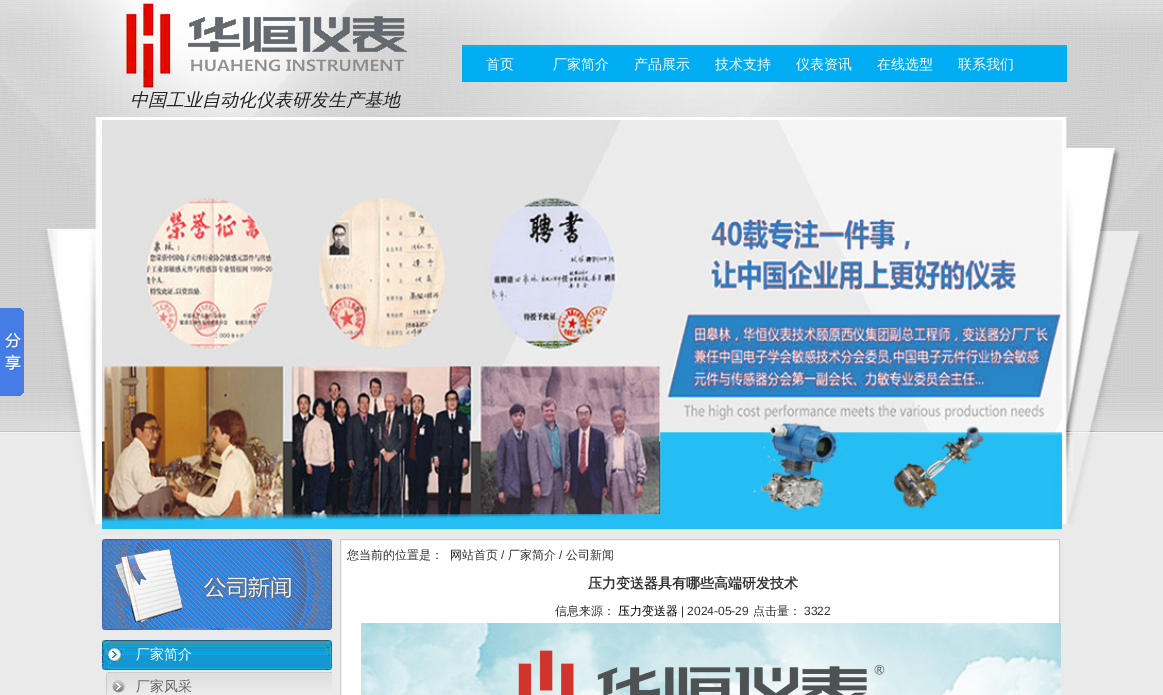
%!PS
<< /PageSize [1163 695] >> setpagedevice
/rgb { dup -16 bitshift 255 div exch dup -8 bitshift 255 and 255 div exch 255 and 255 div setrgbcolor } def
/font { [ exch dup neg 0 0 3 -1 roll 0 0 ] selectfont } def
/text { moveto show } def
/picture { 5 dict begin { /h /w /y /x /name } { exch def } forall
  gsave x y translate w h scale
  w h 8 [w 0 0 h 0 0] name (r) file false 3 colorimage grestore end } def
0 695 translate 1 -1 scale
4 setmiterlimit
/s1 { /WenQuanYiZenHei-Medium 14 font 16#FFFFFF rgb } def
/s2 { /WenQuanYiZenHei-MediumItalic 18 font 16#222222 rgb } def
/s3 { /WenQuanYiZenHei-Medium 12 font 16#333333 rgb } def
/s4 { /LiberationSans-Regular 12 font 16#333333 rgb } def
/s5 { /WenQuanYiZenHei-Bold 14 font 16#333333 rgb } def
/s6 { /WenQuanYiZenHei-Medium 12 font 16#000000 rgb } def
/s7 { /WenQuanYiZenHei-Medium 14 font 16#666666 rgb } def
16#EAEAEA rgb
0 0 1163 695 rectfill
(pic1.raw) 0 0 1163 524 picture
(pic2.raw) 462 45 605 37 picture
s1
(首页) 486 69 text
(厂家简介) 553 69 text
(产品展示) 634 69 text
(技术支持) 715 69 text
(仪表资讯) 796 69 text
(在线选型) 877 69 text
(联系我们) 958 69 text
(pic3.raw) 124 0 283 89 picture
s2
(中国工业自动化仪表研发生产基地) 130 106 text
(pic4.raw) 0 308 24 88 picture
(pic5.raw) 102 120 960 409 picture
16#FFFFFF rgb
340.5 539.5 moveto 1059.5 539.5 lineto 1059.5 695.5 lineto 340.5 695.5 lineto closepath gsave fill grestore
16#CCCCCC rgb
stroke
s3
(您当前的位置是：) 347 559 text
(网站首页) 450 559 text
s4
(/) 501 559 text
s3
(厂家简介) 508 559 text
s4
(/) 559 559 text
s3
(公司新闻) 566 559 text
s5
(压力变送器具有哪些高端研发技术) 588 588 text
s3
(信息来源：) 555 615 text
s6
(压力变送器) 618 615 text
s4
(| 2024-05-29) 681 615 text
s3
(点击量：) 753 615 text
s4
(3322) 804 615 text
(pic6.raw) 361 623 700 72 picture
(pic7.raw) 102 539 230 91 picture
(pic8.raw) 102 640 230 30 picture
s1
(厂家简介) 136 659 text
(pic9.raw) 106 672 226 23 picture
s7
(厂家风采) 136 691 text
showpage
